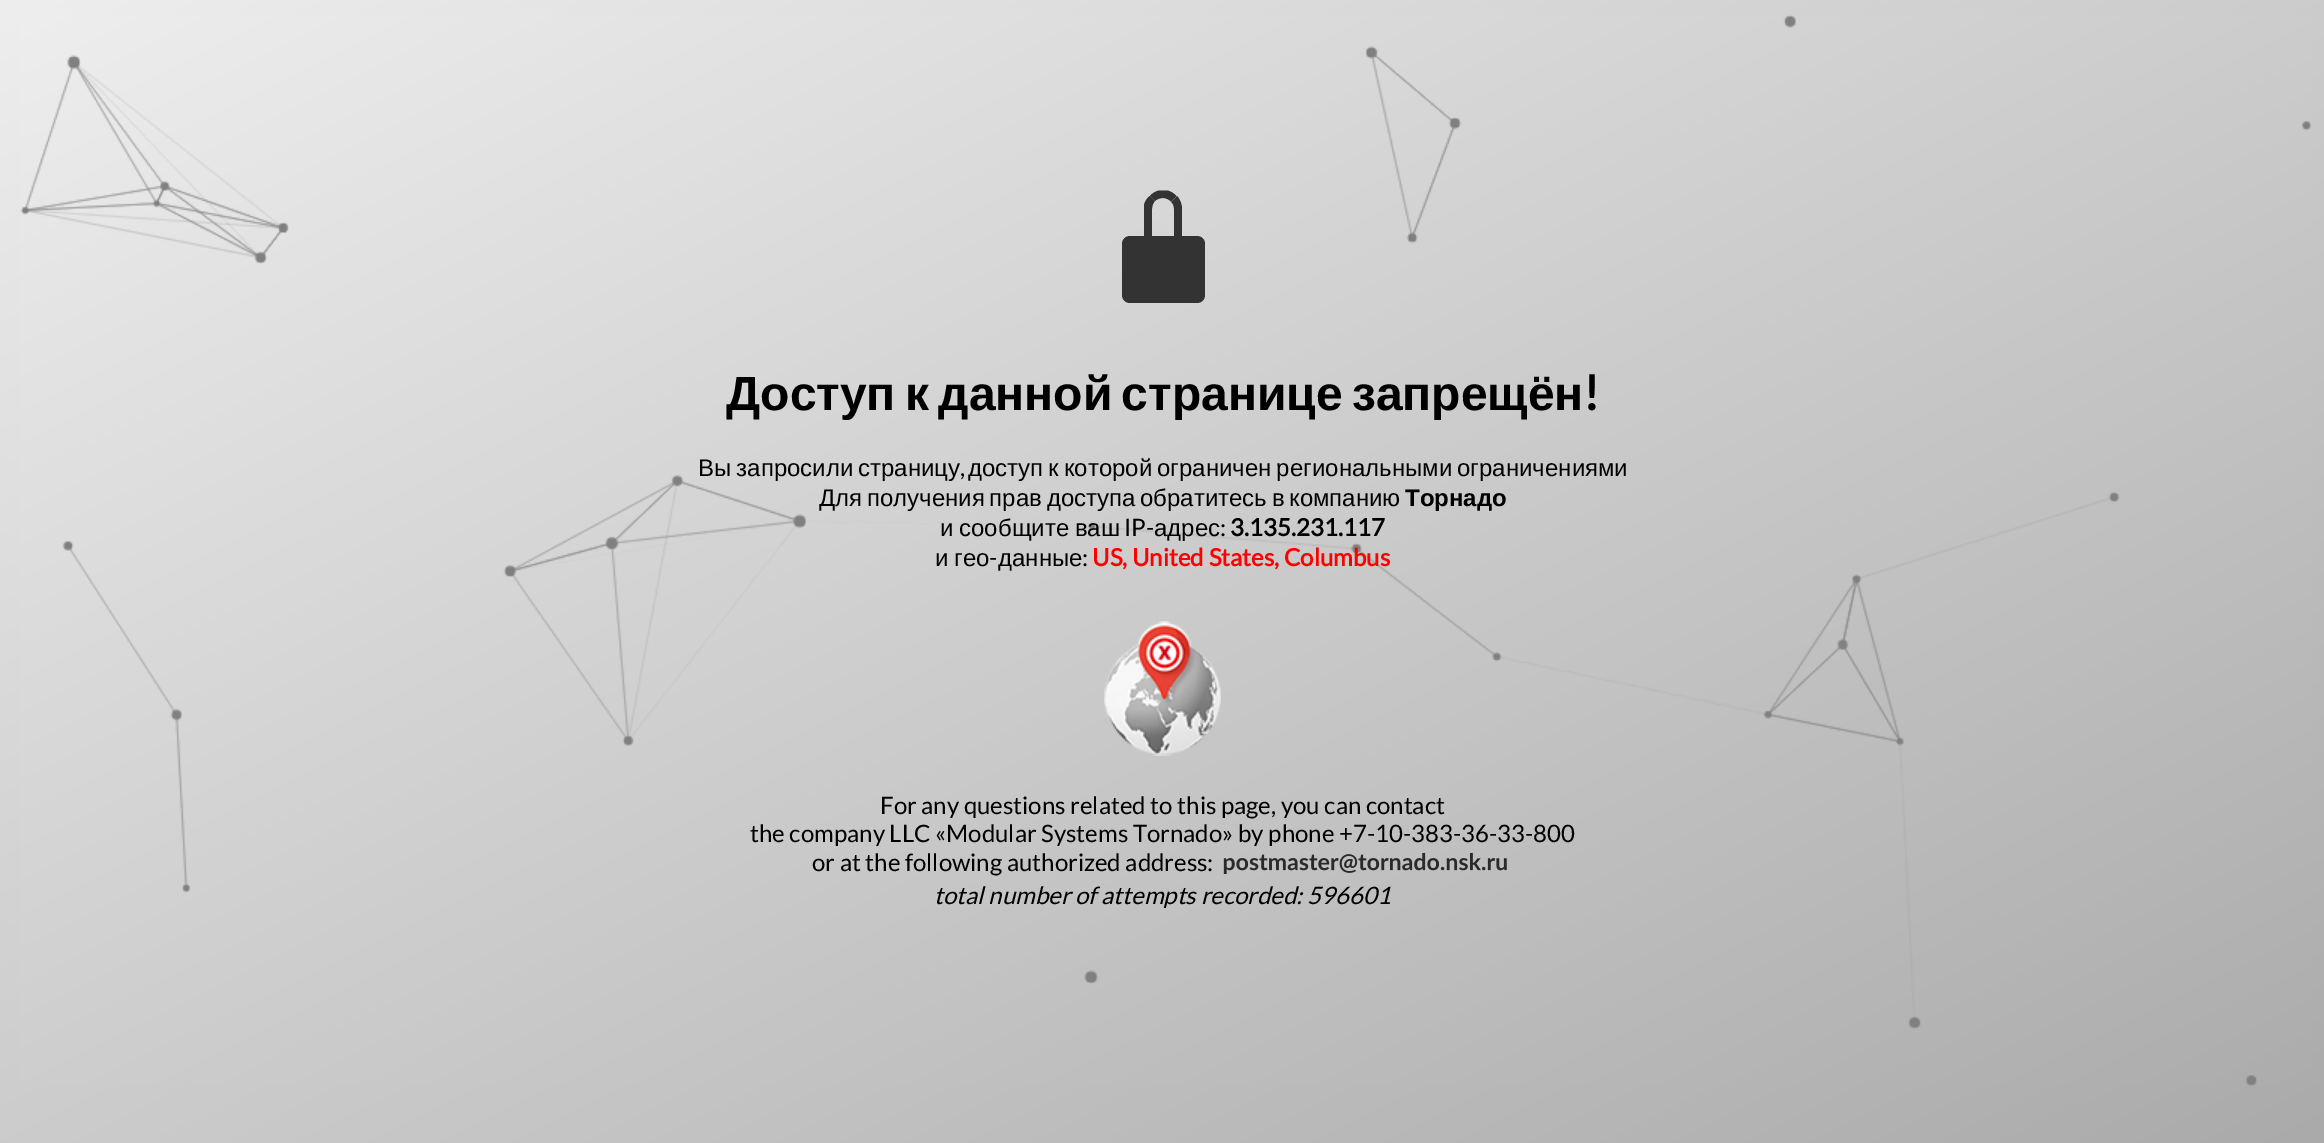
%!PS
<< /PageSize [2324 1143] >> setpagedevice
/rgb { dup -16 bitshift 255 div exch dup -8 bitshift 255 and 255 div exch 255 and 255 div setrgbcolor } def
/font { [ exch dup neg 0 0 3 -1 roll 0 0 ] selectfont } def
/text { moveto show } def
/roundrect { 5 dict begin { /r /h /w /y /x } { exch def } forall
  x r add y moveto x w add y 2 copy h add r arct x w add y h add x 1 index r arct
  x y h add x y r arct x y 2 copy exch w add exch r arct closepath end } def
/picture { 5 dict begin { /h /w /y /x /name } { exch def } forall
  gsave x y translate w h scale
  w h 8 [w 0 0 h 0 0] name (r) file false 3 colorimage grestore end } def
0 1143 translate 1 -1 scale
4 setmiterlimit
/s1 { /Lato-Bold 48 font 16#000000 rgb } def
/s2 { /Lato-Regular 24 font 16#000000 rgb } def
/s3 { /LiberationSans-Bold 24 font 16#000000 rgb } def
/s4 { /LiberationSans-Regular 24 font 16#000000 rgb } def
/s5 { /Lato-Bold 24 font 16#000000 rgb } def
/s6 { /Lato-Bold 24 font 16#FF0000 rgb } def
/s7 { /Lato-Italic 24 font 16#000000 rgb } def
16#FFFFFF rgb
0 0 2324 1143 rectfill
gsave 0 0 moveto 2324 0 lineto 2324 1143 lineto 0 1143 lineto closepath clip newpath
<< /ShadingType 2 /ColorSpace /DeviceRGB /Coords [710 -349 1615 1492] /Extend [true true] /Function << /FunctionType 2 /Domain [0 1] /C0 [0.933 0.933 0.933] /C1 [0.667 0.667 0.667] /N 1 >> >> shfill grestore
(pic1.raw) 20 15 2292 1071 picture
16#333333 rgb
1122 236 83 67 8 roundrect fill
1163 198 moveto 1160 198 1157 199 1155 201 curveto 1150 196 lineto 1152.5 193 1155.5 191.5 1159 190.5 curveto 1167.5 190.5 lineto 1171 191.5 1174 193.5 1176.5 196 curveto 1171 201.5 lineto 1169 199.5 1166 198 1163 198 curveto closepath fill
1182 250 moveto 1182 209 lineto 1182 204 1180 199 1177 196 curveto 1171 202 lineto 1173 203 1174 206 1174 209 curveto 1174 242 lineto closepath 1144 250 moveto 1144 205 lineto 1145 201 1147 198 1150 196 curveto 1155 201 lineto 1153 203 1152 206 1152 209 curveto 1152 243 lineto closepath fill
/LiberationSans-Bold 48 font
16#000000 rgb
726 410 moveto -4 0 32 (Доступ к данной странице запрещён) widthshow
s1
(!) 1583 410 text
/LiberationSans-Regular 24 font
698 476 moveto -1.75 0 32 (Вы запросили страницу) widthshow
s2
(,) 960 476 text
/LiberationSans-Regular 24 font
968 476 moveto -1.75 0 32 (доступ к которой ограничен региональными ограничениями) widthshow
819 506 moveto -2 0 32 (Для получения прав доступа обратитесь в компанию) widthshow
s3
(Торнадо) 1405 506 text
/LiberationSans-Regular 24 font
940 536 moveto -1 0 32 (и сообщите ваш) widthshow
s2
(IP-) 1124 536 text
s4
(адрес) 1154 536 text
s2
(:) 1220 536 text
s5
(3.135.231.117) 1230 536 text
/LiberationSans-Regular 24 font
935 566 moveto -1 0 32 (и гео) widthshow
s2
(-) 989 566 text
s4
(данные) 998 566 text
s2
(:) 1082 566 text
s6
(US, United States, Columbus) 1092 566 text
(pic2.raw) 1104 621 117 135 picture
s2
(For any questions related to this page, you can contact) 880 814 text
(the company LLC «Modular Systems Tornado» by phone +7-10-383-36-33-800) 750 842 text
(or at the following authorized address:) 812 871 text
(pic3.raw) 1223 852 284 22 picture
s7
(total number of attempts recorded: 596601) 934 904 text
showpage
